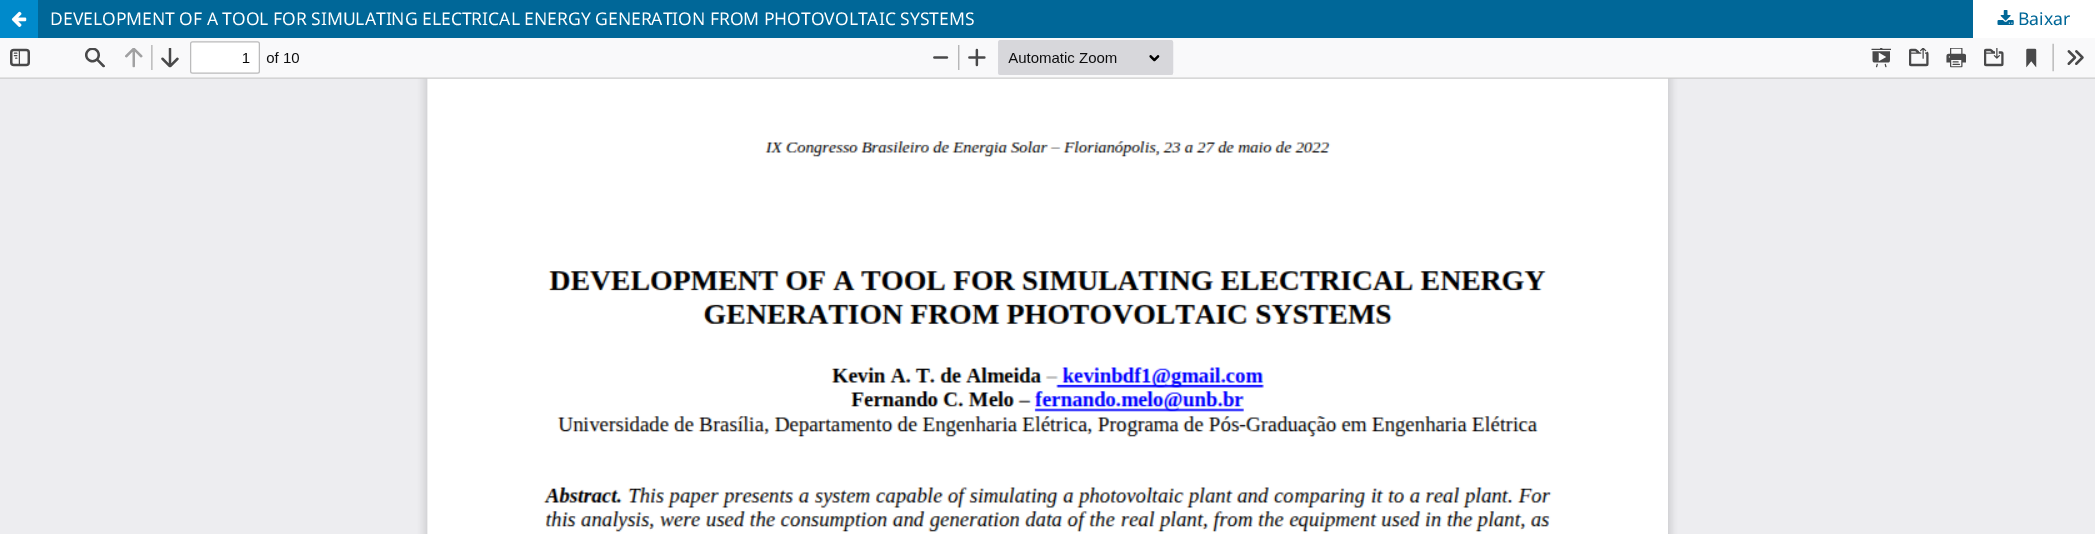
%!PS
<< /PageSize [2095 534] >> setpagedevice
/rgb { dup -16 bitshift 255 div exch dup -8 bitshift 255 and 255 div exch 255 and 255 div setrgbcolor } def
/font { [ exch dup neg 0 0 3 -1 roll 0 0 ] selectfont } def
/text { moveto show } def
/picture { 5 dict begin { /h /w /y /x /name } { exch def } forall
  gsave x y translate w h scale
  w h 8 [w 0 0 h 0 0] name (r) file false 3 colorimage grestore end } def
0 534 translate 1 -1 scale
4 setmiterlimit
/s1 { /NotoSans-Regular 17.5 font 16#FFFFFF rgb } def
/s2 { /NotoSans-Regular 17.5 font 16#006798 rgb } def
16#FFFFFF rgb
0 0 2095 534 rectfill
16#006798 rgb
38 0 1935 38 rectfill
16#008ACB rgb
0 0 38 38 rectfill
(pic1.raw) 11 11 16 16 picture
s1
(DEVELOPMENT OF A TOOL FOR SIMULATING ELECTRICAL ENERGY GENERATION FROM PHOTOVOLTAIC SYSTEMS) 50 25 text
(pic2.raw) 1997 10 17 15 picture
s2
(Baixar) 2018 25 text
(pic3.raw) 0 38 2095 496 picture
showpage
